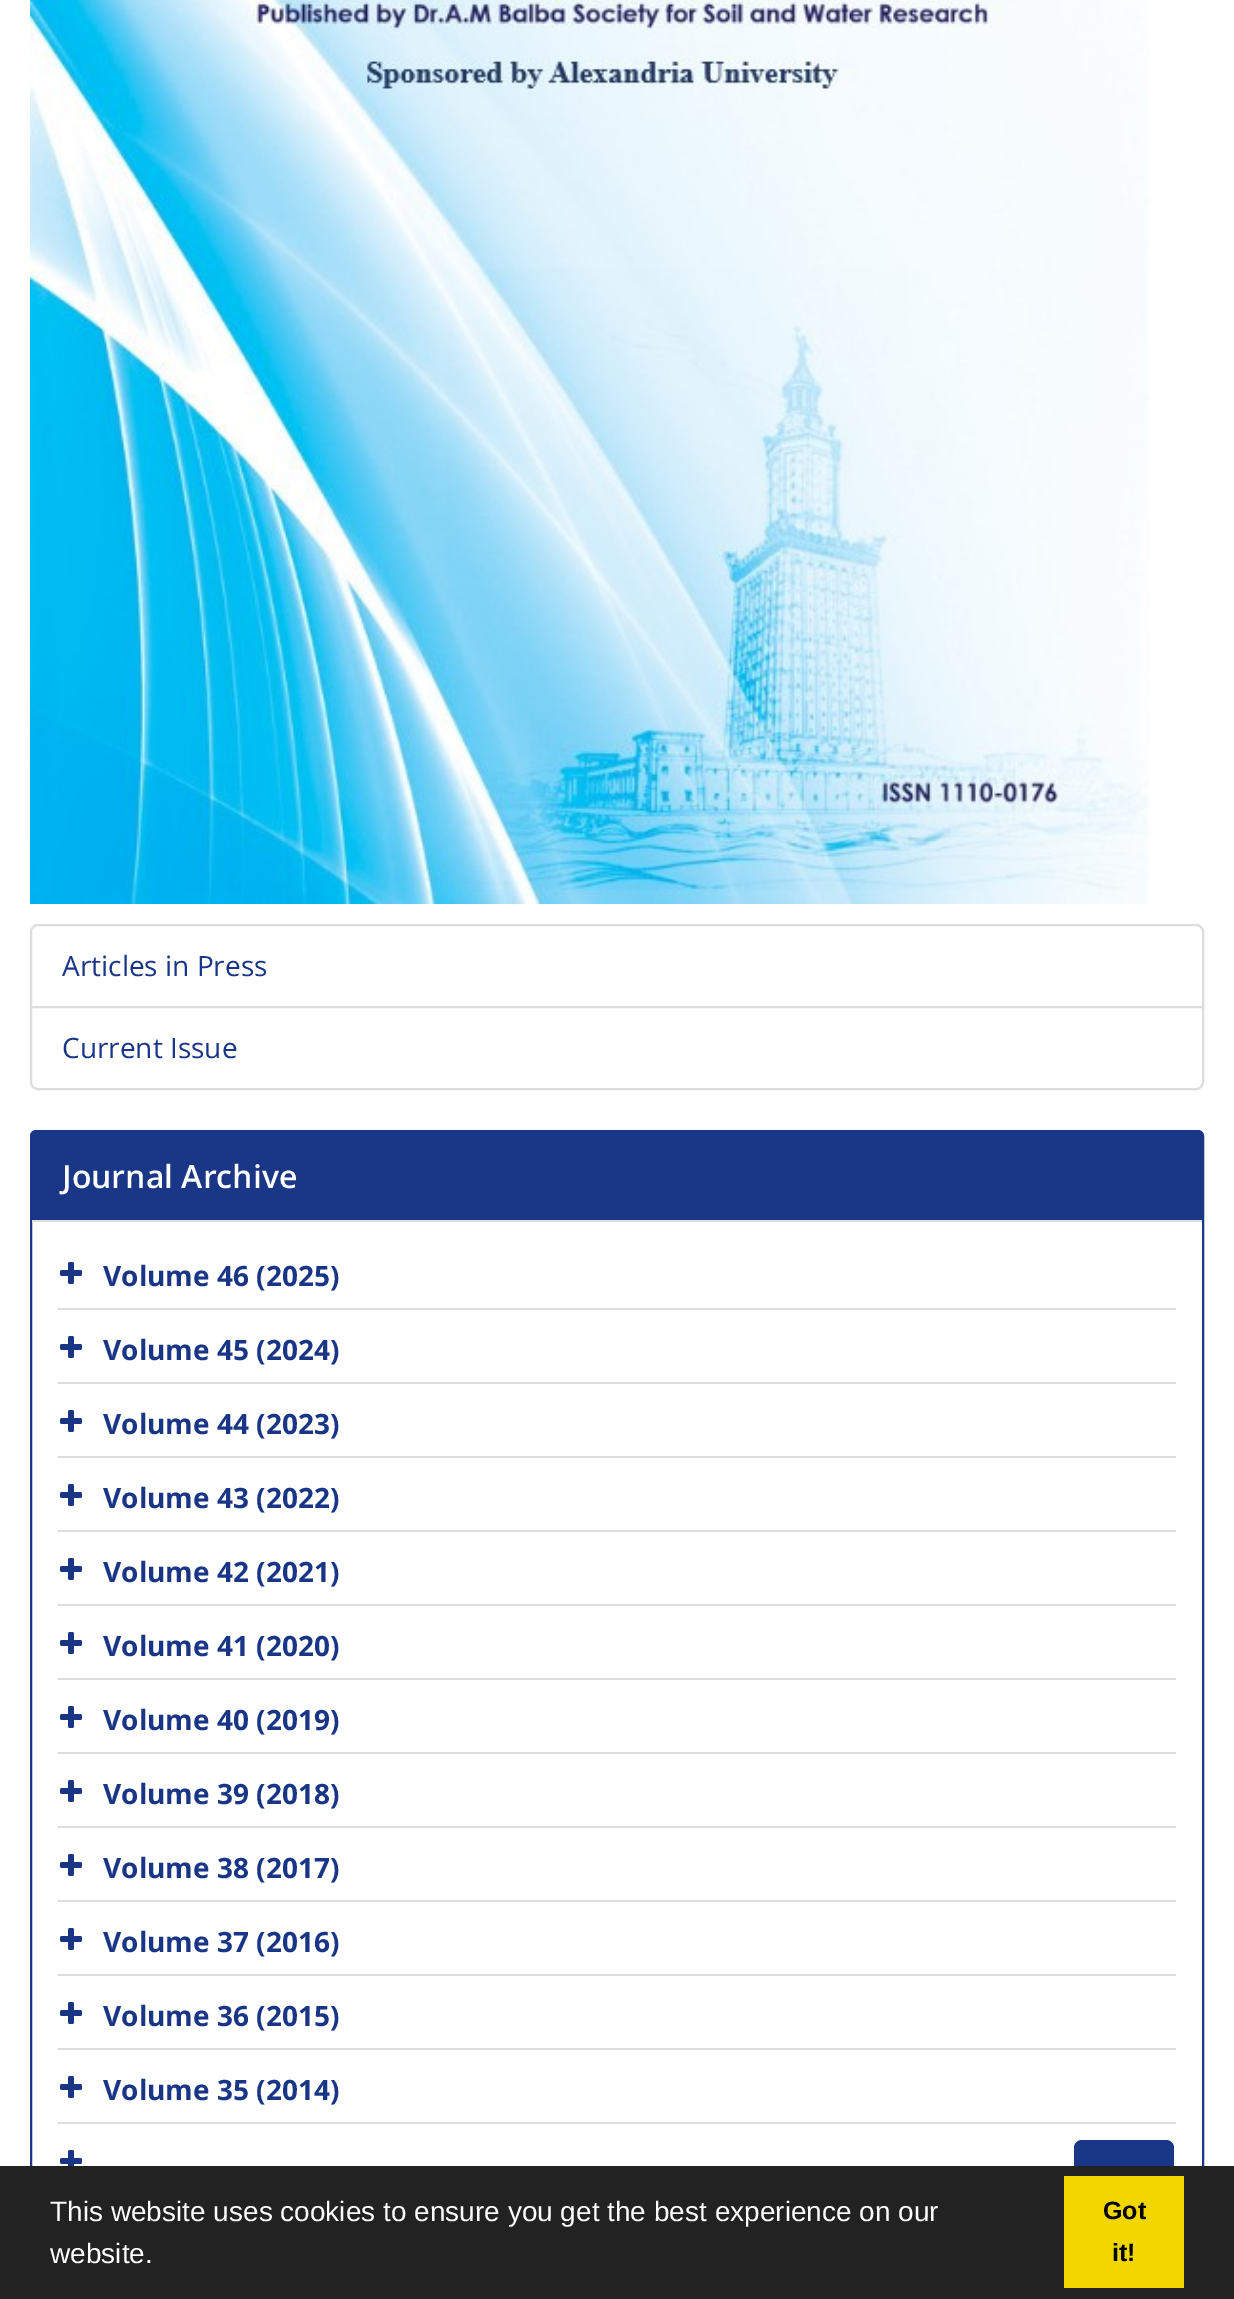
%!PS
<< /PageSize [1234 2299] >> setpagedevice
/rgb { dup -16 bitshift 255 div exch dup -8 bitshift 255 and 255 div exch 255 and 255 div setrgbcolor } def
/font { [ exch dup neg 0 0 3 -1 roll 0 0 ] selectfont } def
/text { moveto show } def
/roundrect { 5 dict begin { /r /h /w /y /x } { exch def } forall
  x r add y moveto x w add y 2 copy h add r arct x w add y h add x 1 index r arct
  x y h add x y r arct x y 2 copy exch w add exch r arct closepath end } def
/picture { 5 dict begin { /h /w /y /x /name } { exch def } forall
  gsave x y translate w h scale
  w h 8 [w 0 0 h 0 0] name (r) file false 3 colorimage grestore end } def
0 2299 translate 1 -1 scale
4 setmiterlimit
/s1 { /OpenSans-Regular 28 font 16#183586 rgb } def
/s2 { /OpenSans-SemiBold 32 font 16#FFFFFF rgb } def
/s3 { /OpenSans-Bold 28 font 16#183586 rgb } def
/s4 { /LiberationSans-Regular 28 font 16#FFFFFF rgb } def
/s5 { /LiberationSans-Bold 25 font 16#000000 rgb } def
16#FFFFFF rgb
0 0 1234 2299 rectfill
(pic1.raw) 30 0 1120 904 picture
16#DDDDDD rgb
2 setlinewidth
38 925 moveto 1196 925 lineto 1200 925 1203 928 1203 932 curveto 1203 1007 lineto 31 1007 lineto 31 932 lineto 31 928 34 925 38 925 curveto closepath stroke
s1
(Articles in Press) 62 976 text
16#FFFFFF rgb
31 1007 moveto 1203 1007 lineto 1203 1082 lineto 1203 1086 1200 1089 1196 1089 curveto 38 1089 lineto 34 1089 31 1086 31 1082 curveto closepath gsave fill grestore
16#DDDDDD rgb
stroke
s1
(Current Issue) 62 1058 text
16#193687 rgb
31 1131 1172 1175 5 roundrect stroke
32 1132 1170 88 rectfill
16#DDDDDD rgb
32 1220 1170 2 rectfill
s2
(Journal Archive) 62 1188 text
16#DDDDDD rgb
58 1308 1118 2 rectfill
(pic2.raw) 60 1262 22 22 picture
s3
(Volume 46 \(2025\)) 103 1286 text
16#DDDDDD rgb
58 1382 1118 2 rectfill
(pic2.raw) 60 1336 22 22 picture
s3
(Volume 45 \(2024\)) 103 1360 text
16#DDDDDD rgb
58 1456 1118 2 rectfill
(pic2.raw) 60 1410 22 22 picture
s3
(Volume 44 \(2023\)) 103 1434 text
16#DDDDDD rgb
58 1530 1118 2 rectfill
(pic2.raw) 60 1484 22 22 picture
s3
(Volume 43 \(2022\)) 103 1508 text
16#DDDDDD rgb
58 1604 1118 2 rectfill
(pic2.raw) 60 1558 22 22 picture
s3
(Volume 42 \(2021\)) 103 1582 text
16#DDDDDD rgb
58 1678 1118 2 rectfill
(pic2.raw) 60 1632 22 22 picture
s3
(Volume 41 \(2020\)) 103 1656 text
16#DDDDDD rgb
58 1752 1118 2 rectfill
(pic2.raw) 60 1706 22 22 picture
s3
(Volume 40 \(2019\)) 103 1730 text
16#DDDDDD rgb
58 1826 1118 2 rectfill
(pic2.raw) 60 1780 22 22 picture
s3
(Volume 39 \(2018\)) 103 1804 text
16#DDDDDD rgb
58 1900 1118 2 rectfill
(pic2.raw) 60 1854 22 22 picture
s3
(Volume 38 \(2017\)) 103 1878 text
16#DDDDDD rgb
58 1974 1118 2 rectfill
(pic2.raw) 60 1928 22 22 picture
s3
(Volume 37 \(2016\)) 103 1952 text
16#DDDDDD rgb
58 2048 1118 2 rectfill
(pic2.raw) 60 2002 22 22 picture
s3
(Volume 36 \(2015\)) 103 2026 text
16#DDDDDD rgb
58 2122 1118 2 rectfill
(pic2.raw) 60 2076 22 22 picture
s3
(Volume 35 \(2014\)) 103 2100 text
(pic3.raw) 60 2150 22 16 picture
16#193687 rgb
1074 2140 100 100 8 roundrect fill
16#222222 rgb
0 2166 1234 133 rectfill
s4
(This website uses cookies to ensure you get the best experience on our) 50 2221 text
(website.) 50 2263 text
16#F1D600 rgb
1064 2176 120 112 rectfill
s5
(Got) 1103 2219 text
(it!) 1112 2261 text
showpage
